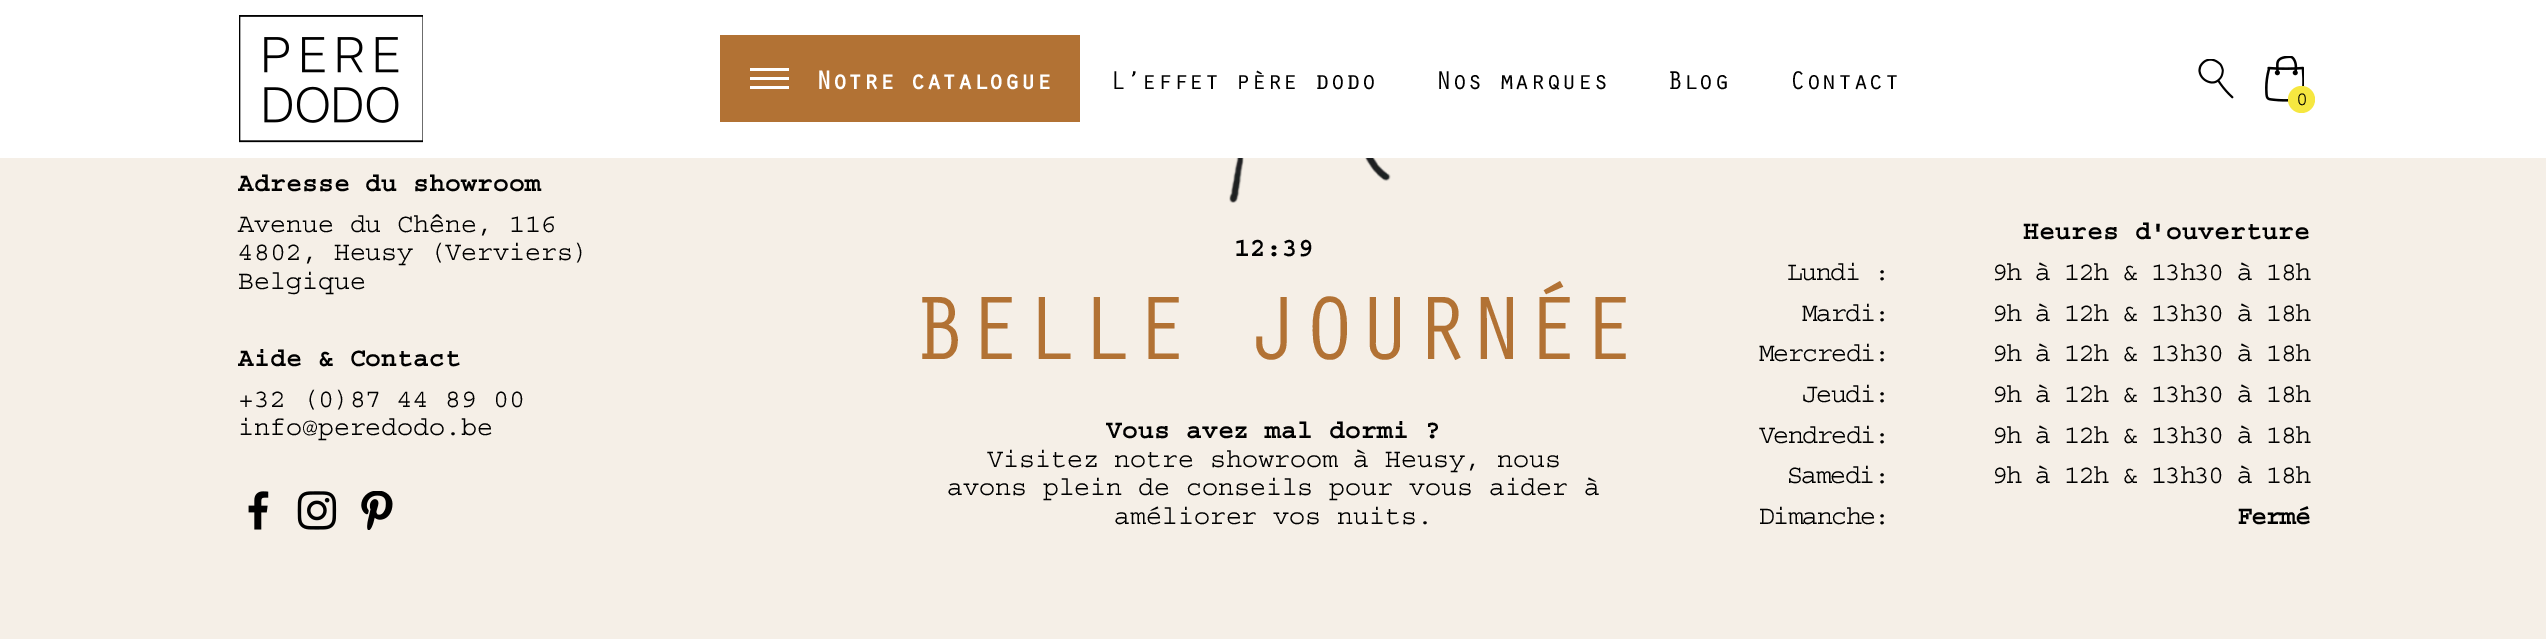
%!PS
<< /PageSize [2546 639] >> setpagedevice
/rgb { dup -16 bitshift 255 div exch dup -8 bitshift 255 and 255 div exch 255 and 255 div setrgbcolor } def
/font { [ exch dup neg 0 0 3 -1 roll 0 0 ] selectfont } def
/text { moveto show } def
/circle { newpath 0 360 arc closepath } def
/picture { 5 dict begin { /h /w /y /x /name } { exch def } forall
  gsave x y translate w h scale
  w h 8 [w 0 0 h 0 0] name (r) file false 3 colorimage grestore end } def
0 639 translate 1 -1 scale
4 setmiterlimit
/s1 { /Courier-Medium 20 font 16#000000 rgb } def
/s2 { /Courier-Bold 26.55 font 16#000000 rgb } def
/s3 { /Courier-Medium 26.55 font 16#000000 rgb } def
/s4 { /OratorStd-Regular 93 font 16#B27234 rgb } def
16#F5EFE7 rgb
0 0 2546 639 rectfill
16#FFFFFF rgb
0 0 2546 158 rectfill
(pic1.raw) 239 15 184 128 picture
16#B27234 rgb
720 35 360 87 rectfill
16#FFFFFF rgb
750 68 39 3 rectfill
750 77 39 3 rectfill
750 86 39 3 rectfill
/OratorStd-Bold 26.55 font
816 89 moveto -0.25 0 (Notre catalogue) ashow
/OratorStd-Regular 26.55 font
16#000000 rgb
1110 89 moveto -0.25 0 (L’effet père dodo) ashow
1436 89 moveto -0.25 0 (Nos marques) ashow
1667 89 moveto -0.25 0 (Blog) ashow
1790 89 moveto -0.25 0 (Contact) ashow
(pic2.raw) 2198 59 36 40 picture
(pic3.raw) 2265 56 39 46 picture
16#F6E740 rgb
2301.5 99.5 13.5 circle fill
s1
(0) 2296 105 text
s2
(Adresse du showroom) 238 191 text
s3
(Avenue du Chêne, 116) 238 232 text
(4802, Heusy \(Verviers\)) 238 260 text
(Belgique) 238 289 text
s2
(Aide & Contact) 238 366 text
s3
(+32 \(0\)87 44 89 00) 238 407 text
(info@peredodo.be) 238 435 text
(pic4.raw) 248 491 21 39 picture
(pic5.raw) 297 491 40 39 picture
(pic6.raw) 361 491 32 39 picture
(pic7.raw) 1229 158 162 45 picture
s2
(12:39) 1234 256 text
s4
(BELLE JOURNÉE) 911 359 text
s2
(Vous avez mal dormi ?) 1106 438 text
s3
(Visitez notre showroom à Heusy, nous) 987 467 text
(avons plein de conseils pour vous aider à) 947 495 text
(améliorer vos nuits.) 1114 524 text
s2
(Heures d'ouverture) 2023 239 text
/Courier-Medium 26.55 font
1787 280 moveto -1.5 0 (Lundi :) ashow
1992 280 moveto -1.5 0 (9h à 12h & 13h30 à 18h) ashow
1802 321 moveto -1.5 0 (Mardi:) ashow
1992 321 moveto -1.5 0 (9h à 12h & 13h30 à 18h) ashow
1759 361 moveto -1.5 0 (Mercredi:) ashow
1992 361 moveto -1.5 0 (9h à 12h & 13h30 à 18h) ashow
1802 402 moveto -1.5 0 (Jeudi:) ashow
1992 402 moveto -1.5 0 (9h à 12h & 13h30 à 18h) ashow
1759 443 moveto -1.5 0 (Vendredi:) ashow
1992 443 moveto -1.5 0 (9h à 12h & 13h30 à 18h) ashow
1787 483 moveto -1.5 0 (Samedi:) ashow
1992 483 moveto -1.5 0 (9h à 12h & 13h30 à 18h) ashow
1759 524 moveto -1.5 0 (Dimanche:) ashow
/Courier-Bold 26.55 font
2237 524 moveto -1.5 0 (Fermé) ashow
showpage
